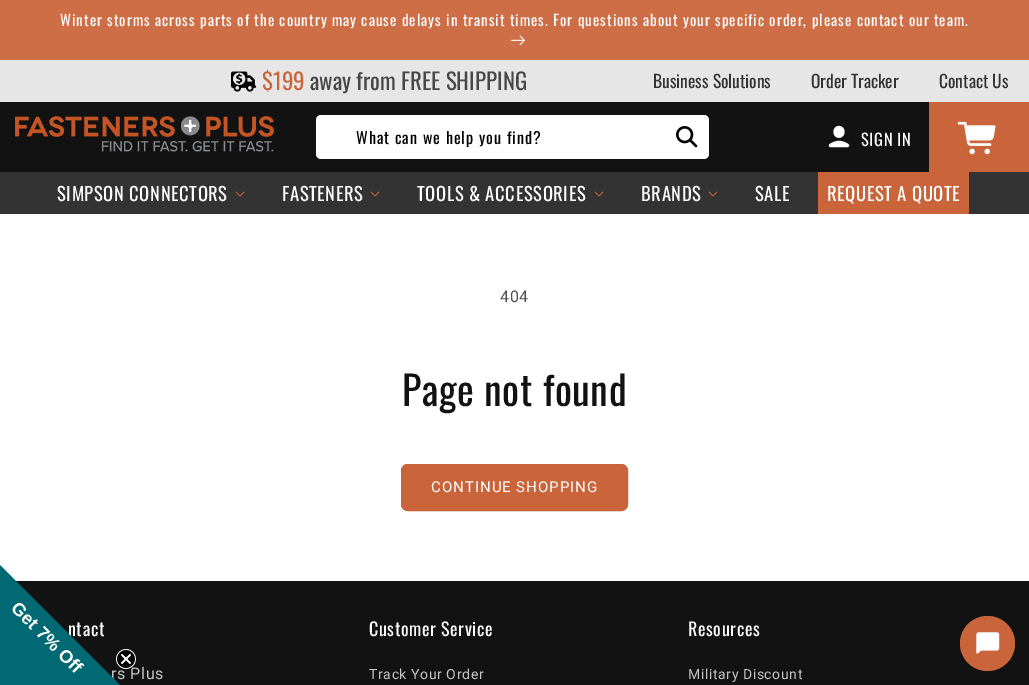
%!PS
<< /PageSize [1029 685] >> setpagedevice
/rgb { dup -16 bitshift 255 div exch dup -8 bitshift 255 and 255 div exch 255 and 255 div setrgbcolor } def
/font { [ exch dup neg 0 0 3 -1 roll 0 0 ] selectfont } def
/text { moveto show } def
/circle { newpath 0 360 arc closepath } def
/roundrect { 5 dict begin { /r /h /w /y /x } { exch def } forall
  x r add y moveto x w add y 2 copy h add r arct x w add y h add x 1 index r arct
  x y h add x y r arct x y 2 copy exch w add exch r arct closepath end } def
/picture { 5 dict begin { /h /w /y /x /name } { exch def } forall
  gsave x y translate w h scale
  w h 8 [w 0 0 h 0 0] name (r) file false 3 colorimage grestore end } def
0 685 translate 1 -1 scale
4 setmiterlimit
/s1 { /Oswald-Regular 22.9 font 16#CA653B rgb } def
/s2 { /Oswald-Regular 22.9 font 16#474747 rgb } def
/s3 { /Oswald-Regular 17.5 font 16#333333 rgb } def
16#FFFFFF rgb
0 0 1029 685 rectfill
16#CE714B rgb
0 59 1029 1 rectfill
16#CD6E47 rgb
0 0 1029 59 rectfill
/Oswald-Regular 15 font
16#FFFFFF rgb
60 26 moveto 1 0 (Winter storms across parts of the country may cause delays in transit times. For questions about your specific order, please contact our team.) ashow
(pic1.raw) 511 35 14 11 picture
16#121212 rgb
0 102 929 70 rectfill
16#E6E6E6 rgb
0 60 1029 42 rectfill
(pic2.raw) 231 71 26 21 picture
s1
($199) 262 90 text
s2
(away from FREE SHIPPING) 310 90 text
s3
(Business Solutions) 653 88 text
(Order Tracker) 811 88 text
(Contact Us) 939 88 text
(pic3.raw) 15 116 259 36 picture
16#FFFFFF rgb
316 115 393 44 5 roundrect fill
/Oswald-Regular 16 font
16#000000 rgb
356 144 moveto 1 0 (What can we help you find?) ashow
(pic4.raw) 676 126 22 22 picture
(pic5.raw) 828 125 22 23 picture
/Oswald-Regular 16.5 font
16#FFFFFF rgb
861 146 moveto 0.6 0 (SIGN IN) ashow
16#CA653B rgb
929 102 100 70 rectfill
(pic6.raw) 957 121 39 34 picture
16#333333 rgb
0 172 1029 42 rectfill
/Oswald-Regular 18.6 font
16#FFFFFF rgb
57 201 moveto 0.6 0 (SIMPSON CONNECTORS) ashow
(pic7.raw) 235 191 10 6 picture
282 201 moveto 0.6 0 (FASTENERS) ashow
(pic7.raw) 370 191 10 6 picture
417 201 moveto 0.6 0 (TOOLS & ACCESSORIES) ashow
(pic7.raw) 594 191 10 6 picture
641 201 moveto 0.6 0 (BRANDS) ashow
(pic7.raw) 708 191 10 6 picture
755 201 moveto 0.6 0 (SALE) ashow
16#CA653B rgb
818 172 151 42 rectfill
16#FFFFFF rgb
827 201 moveto 0.6 0 (REQUEST A QUOTE) ashow
/Roboto-Regular 16 font
16#4D4D4D rgb
500 302 moveto 0.6 0 (404) ashow
/Oswald-Regular 40 font
16#121212 rgb
402 406 moveto 0.6 0 (Page not found) ashow
16#CA653B rgb
401 464 227 47 7 roundrect fill
401.5 464.5 226 46 6.5 roundrect stroke
/Roboto-Regular 15 font
16#FFFFFF rgb
431 492 moveto 1 0 (CONTINUE SHOPPING) ashow
16#121212 rgb
16 581 1013 104 rectfill
/Oswald-Regular 18 font
16#FFFFFF rgb
68 636 moveto 0.6 0 (ntact) ashow
/Roboto-Regular 16 font
16#C4C4C4 rgb
111 679 moveto 0.6 0 (rs Plus) ashow
16#006973 rgb
0 565 moveto 0 685 lineto 120 685 lineto closepath fill
/LiberationSans-Bold 18 font
16#FFFFFF rgb
gsave 10 609 translate 45 rotate 0 0 moveto (Get 7% Off) show grestore
(pic8.raw) 116 649 20 20 picture
/Oswald-Regular 18 font
369 636 moveto 0.6 0 (Customer Service) ashow
/Roboto-Regular 14 font
16#C4C4C4 rgb
369 679 moveto 0.6 0 (Track Your Order) ashow
/Oswald-Regular 18 font
16#FFFFFF rgb
688 636 moveto 0.6 0 (Resources) ashow
/Roboto-Regular 14 font
16#C4C4C4 rgb
688 679 moveto 0.6 0 (Military Discount) ashow
16#CA653B rgb
987.5 643.5 27.5 circle fill
(pic9.raw) 976 632 24 22 picture
showpage
